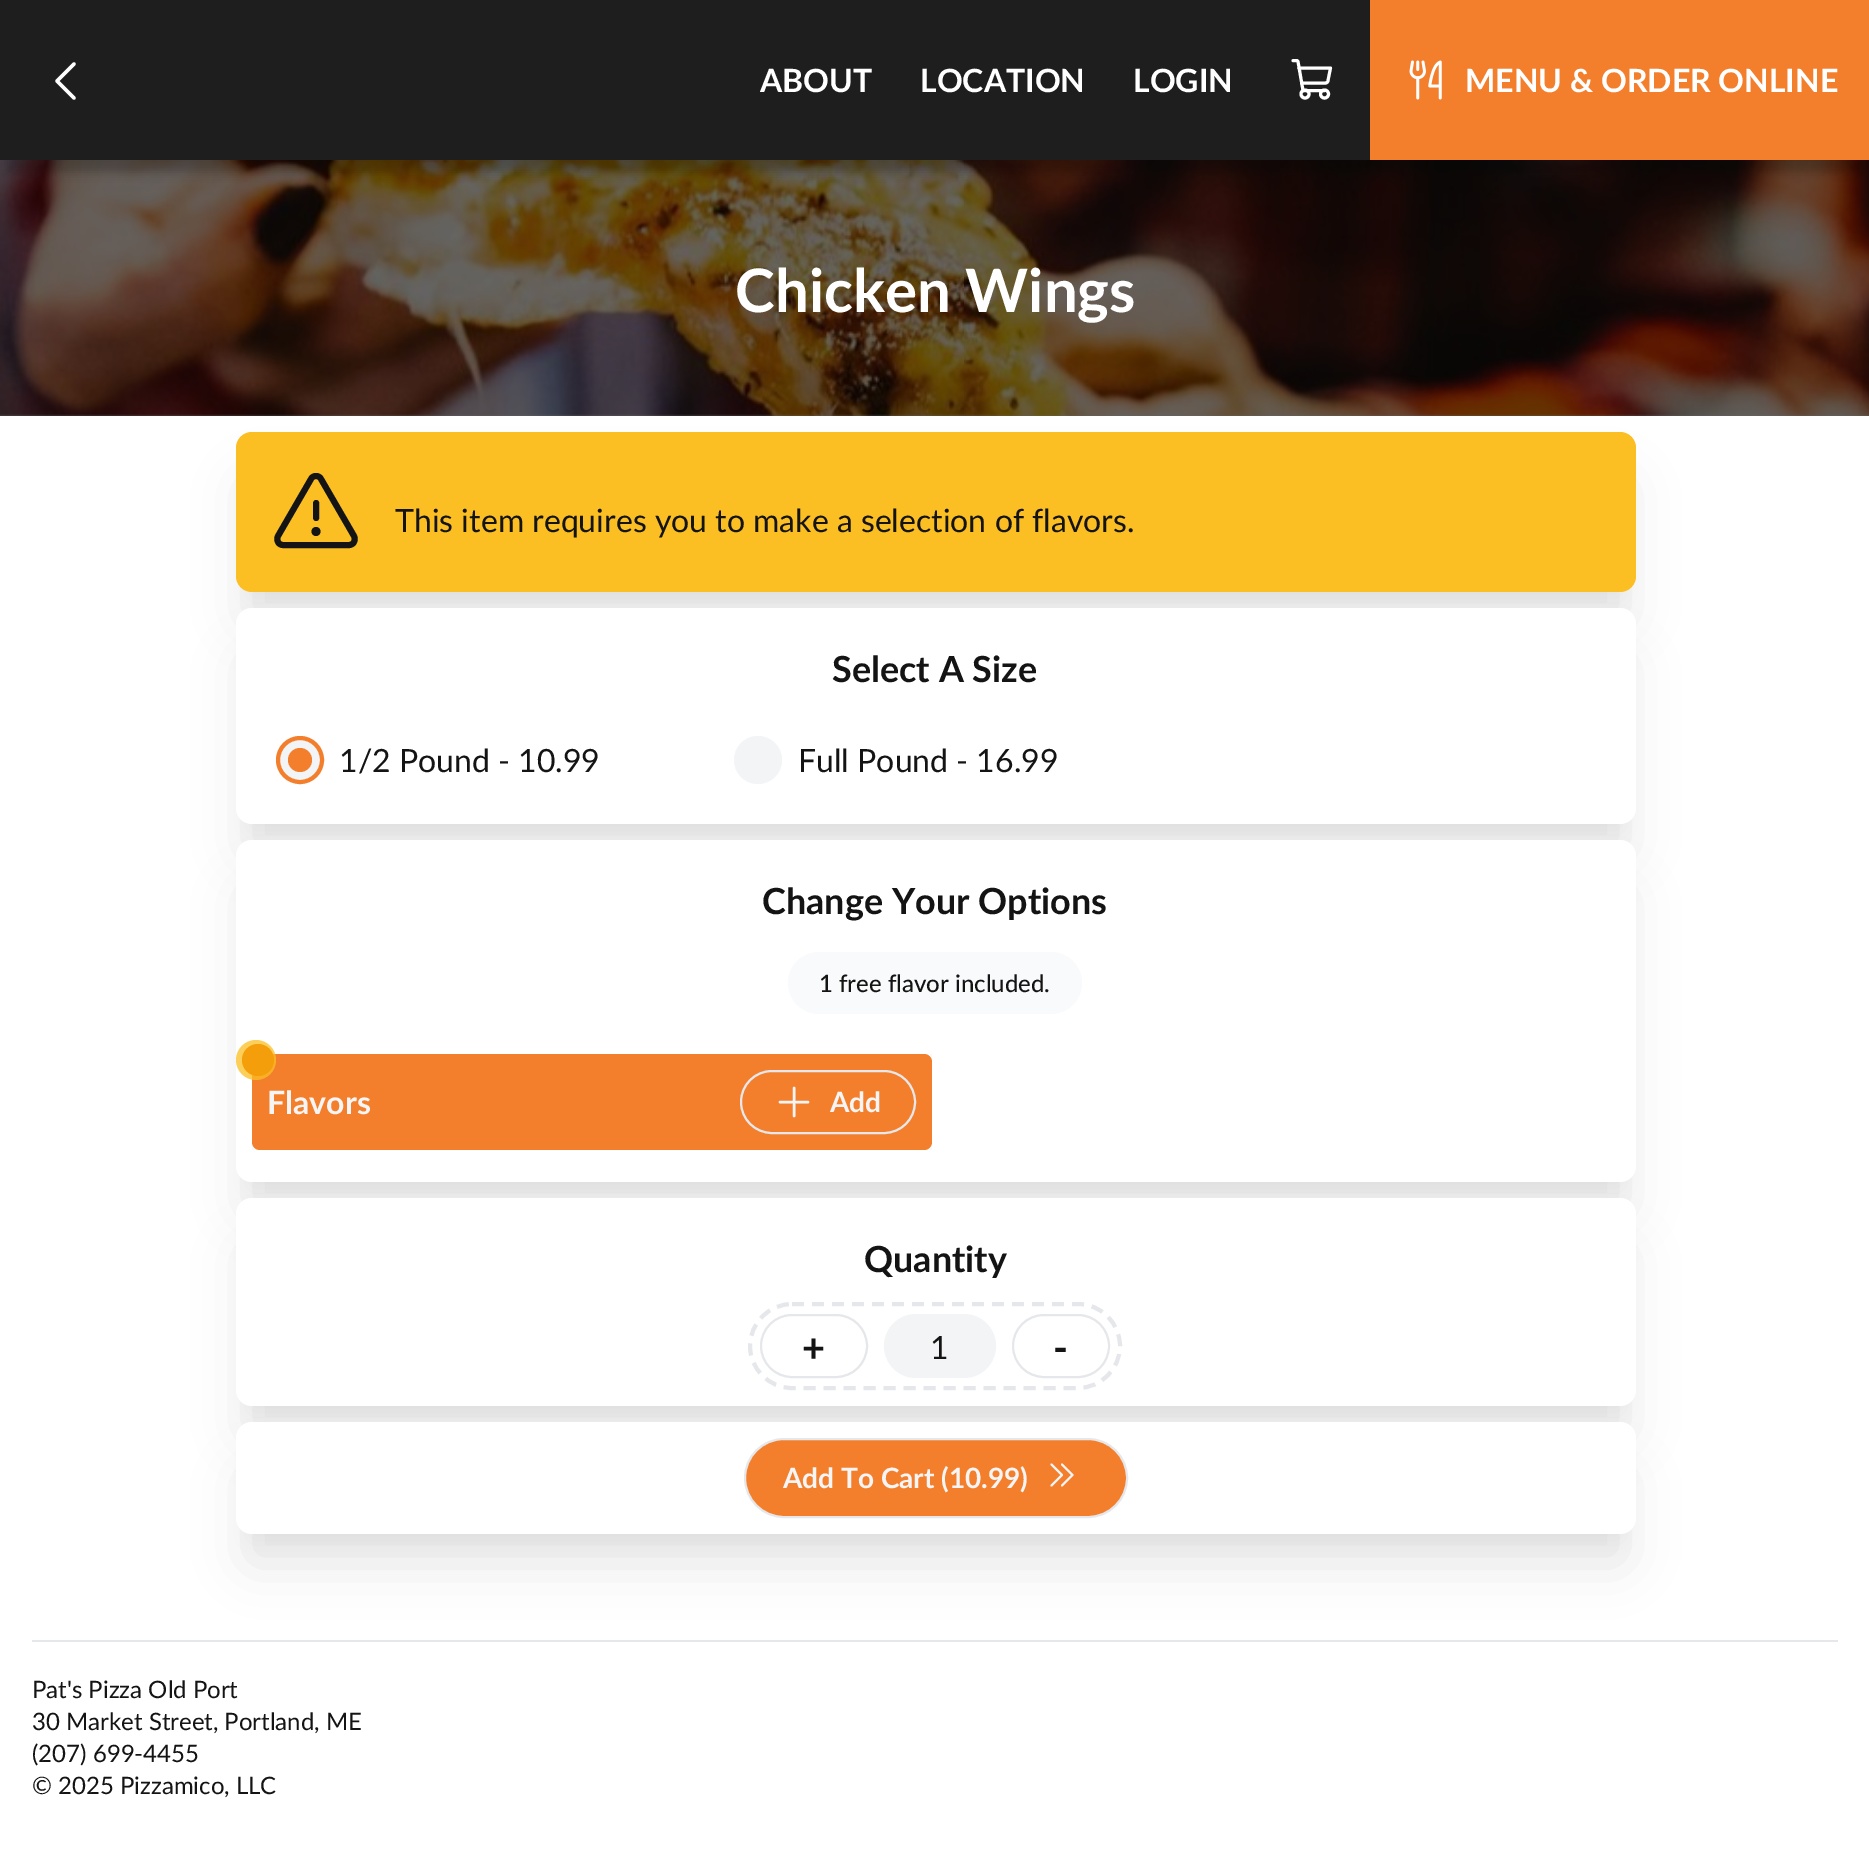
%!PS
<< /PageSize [1869 1865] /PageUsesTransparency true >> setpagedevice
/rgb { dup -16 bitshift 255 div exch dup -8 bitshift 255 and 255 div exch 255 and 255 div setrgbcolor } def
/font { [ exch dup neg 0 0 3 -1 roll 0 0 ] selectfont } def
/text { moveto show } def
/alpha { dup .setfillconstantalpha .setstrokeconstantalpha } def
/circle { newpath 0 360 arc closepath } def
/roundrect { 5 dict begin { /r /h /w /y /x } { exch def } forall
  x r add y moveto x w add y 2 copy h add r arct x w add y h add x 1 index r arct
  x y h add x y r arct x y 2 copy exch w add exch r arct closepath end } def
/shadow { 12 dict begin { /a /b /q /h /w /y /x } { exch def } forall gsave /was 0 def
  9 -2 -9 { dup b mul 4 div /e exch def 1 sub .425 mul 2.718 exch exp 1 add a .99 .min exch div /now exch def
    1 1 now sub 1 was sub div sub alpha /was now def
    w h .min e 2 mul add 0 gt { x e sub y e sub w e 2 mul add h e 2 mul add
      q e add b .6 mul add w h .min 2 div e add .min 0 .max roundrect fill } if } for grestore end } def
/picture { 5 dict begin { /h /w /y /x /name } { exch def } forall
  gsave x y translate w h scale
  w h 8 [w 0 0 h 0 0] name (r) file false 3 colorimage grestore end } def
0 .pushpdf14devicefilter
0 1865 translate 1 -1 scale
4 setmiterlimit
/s1 { /Lato-Bold 32 font 16#FFFFFF rgb } def
/s2 { /Lato-Bold 60 font 16#FFFFFF rgb } def
/s3 { /Lato-Regular 32 font 16#141414 rgb } def
/s4 { /Lato-Bold 36 font 16#141414 rgb } def
/s5 { /Lato-Medium 24 font 16#141414 rgb } def
/s6 { /Lato-Bold 32 font 16#F5F5F5 rgb } def
/s7 { /Lato-Bold 28 font 16#F5F5F5 rgb } def
/s8 { /Lato-Bold 40 font 16#141414 rgb } def
/s9 { /Lato-Regular 24 font 16#141414 rgb } def
16#FFFFFF rgb
0 0 1869 1865 rectfill
16#000000 rgb
246 482 1380 140 6 25 0.1 shadow
(pic2.raw) 0 160 1869 256 picture
8 28 1854 144 0 5 0.25 shadow
16#1E1E1E rgb
0 0 1370 160 rectfill
16#FFFFFF rgb
3.4 setlinewidth
1 setlinecap
1 setlinejoin
74 98 moveto 57 81 lineto 74 64 lineto stroke
s1
(ABOUT) 760 92 text
(LOCATION) 920 92 text
(LOGIN) 1133 92 text
3 setlinewidth
1324.5 90.5 moveto 1303 90.5 lineto 1298 61.5 lineto 1297.5 61 1297 60.5 1296.5 60.5 curveto 1293 60.5 lineto stroke
0 setlinecap
0 setlinejoin
1305 94 4 circle stroke
1324.5 94 4 circle stroke
1 setlinecap
1 setlinejoin
1301.5 83 moveto 1325.5 83 lineto 1326.5 83 1328 82 1328 80.5 curveto 1330.5 68 lineto 1299 68 lineto stroke
16#F37F2D rgb
1370 0 499 160 rectfill
(pic1.raw) 1409 60 33 40 picture
s1
(MENU & ORDER ONLINE) 1465 92 text
s2
(Chicken Wings) 735 312 text
16#000000 rgb
246 462 1380 140 6 10 0.04 shadow
16#FBBF24 rgb
236 432 1400 160 16 roundrect fill
16#141414 rgb
6 setlinewidth
316 503 moveto 316 518 lineto stroke
311 479 moveto 278 536 lineto 277 538 277 540 278 542 curveto 279 544 281 545 283 545 curveto 349 545 lineto 351 545 353 544 354 542 curveto 355 540 355 538 354 536 curveto 321 479 lineto 320 477 318 476 316 476 curveto 314 476 312 477 311 479 curveto closepath stroke
316 531.5 4.5 circle fill
s3
(This item requires you to make a selection of flavors.) 395 532 text
16#000000 rgb
246 638 1380 196 6 10 0.04 shadow
246 658 1380 196 6 25 0.1 shadow
16#FFFFFF rgb
236 608 1400 216 16 roundrect fill
s4
(Select A Size) 832 682 text
16#F3F4F6 rgb
300 760 22 circle gsave fill grestore
16#F37F2D rgb
4 setlinewidth
0 setlinecap
0 setlinejoin
stroke
300 760 12 circle fill
s3
(1/2 Pound - 10.99) 339 772 text
16#F3F4F6 rgb
758 760 24 circle fill
s3
(Full Pound - 16.99) 798 772 text
16#000000 rgb
246 870 1380 322 6 10 0.04 shadow
246 890 1380 322 6 25 0.1 shadow
16#FFFFFF rgb
236 840 1400 342 16 roundrect fill
s4
(Change Your Options) 762 914 text
16#F9FAFB rgb
788 952 294 62 31 roundrect fill
s5
(1 free flavor included.) 819 992 text
16#F9FAFB rgb
252 1054 680 96 rectfill
16#F37F2D rgb
252 1054 680 96 8 roundrect fill
0.75 alpha
16#FBBF24 rgb
256 1060 20 circle fill
1 alpha
16#F59E0B rgb
258 1060 16 circle fill
s6
(Flavors) 267 1114 text
16#E5E7EB rgb
2 setlinewidth
741 1071 174 62 31 roundrect stroke
16#F5F5F5 rgb
2.5 setlinewidth
1 setlinecap
1 setlinejoin
780 1102 moveto 808 1102 lineto 794 1088 moveto 794 1116 lineto stroke
s7
(Add) 830 1112 text
16#000000 rgb
246 1228 1380 188 6 10 0.04 shadow
246 1248 1380 188 6 25 0.1 shadow
16#FFFFFF rgb
236 1198 1400 208 16 roundrect fill
s4
(Quantity) 864 1272 text
16#E5E7EB rgb
4 setlinewidth
0 setlinecap
0 setlinejoin
[12 8] 0 setdash
792 1304 moveto 1078 1304 lineto 1101 1304 1120 1323 1120 1346 curveto 1120 1369 1101 1388 1078 1388 curveto 792 1388 lineto 769 1388 750 1369 750 1346 curveto 750 1323 769 1304 792 1304 curveto closepath stroke
2 setlinewidth
[] 0 setdash
761 1315 106 62 31 roundrect stroke
s8
(+) 802 1362 text
16#F3F4F6 rgb
884 1314 112 64 32 roundrect fill
s3
(1) 930 1359 text
16#E5E7EB rgb
1013 1315 96 62 31 roundrect stroke
s8
(-) 1053 1362 text
16#000000 rgb
246 1452 1380 92 6 10 0.04 shadow
246 1472 1380 92 6 25 0.1 shadow
16#FFFFFF rgb
236 1422 1400 112 16 roundrect fill
16#F37F2D rgb
745 1439 382 78 39 roundrect gsave fill grestore
16#E5E7EB rgb
stroke
s7
(Add To Cart \(10.99\)) 783 1488 text
2.1 setlinewidth
1 setlinecap
1 setlinejoin
1051.5 1464.5 moveto 1062 1475 lineto 1051.5 1485.5 lineto 1062 1464.5 moveto 1072.5 1475 lineto 1062 1485.5 lineto stroke
16#E5E7EB rgb
32 1640 1806 2 rectfill
s9
(Pat's Pizza Old Port) 32 1698 text
(30 Market Street, Portland, ME) 32 1730 text
(\(207\) 699-4455) 32 1762 text
(© 2025 Pizzamico, LLC) 32 1794 text
.poppdf14devicefilter showpage
